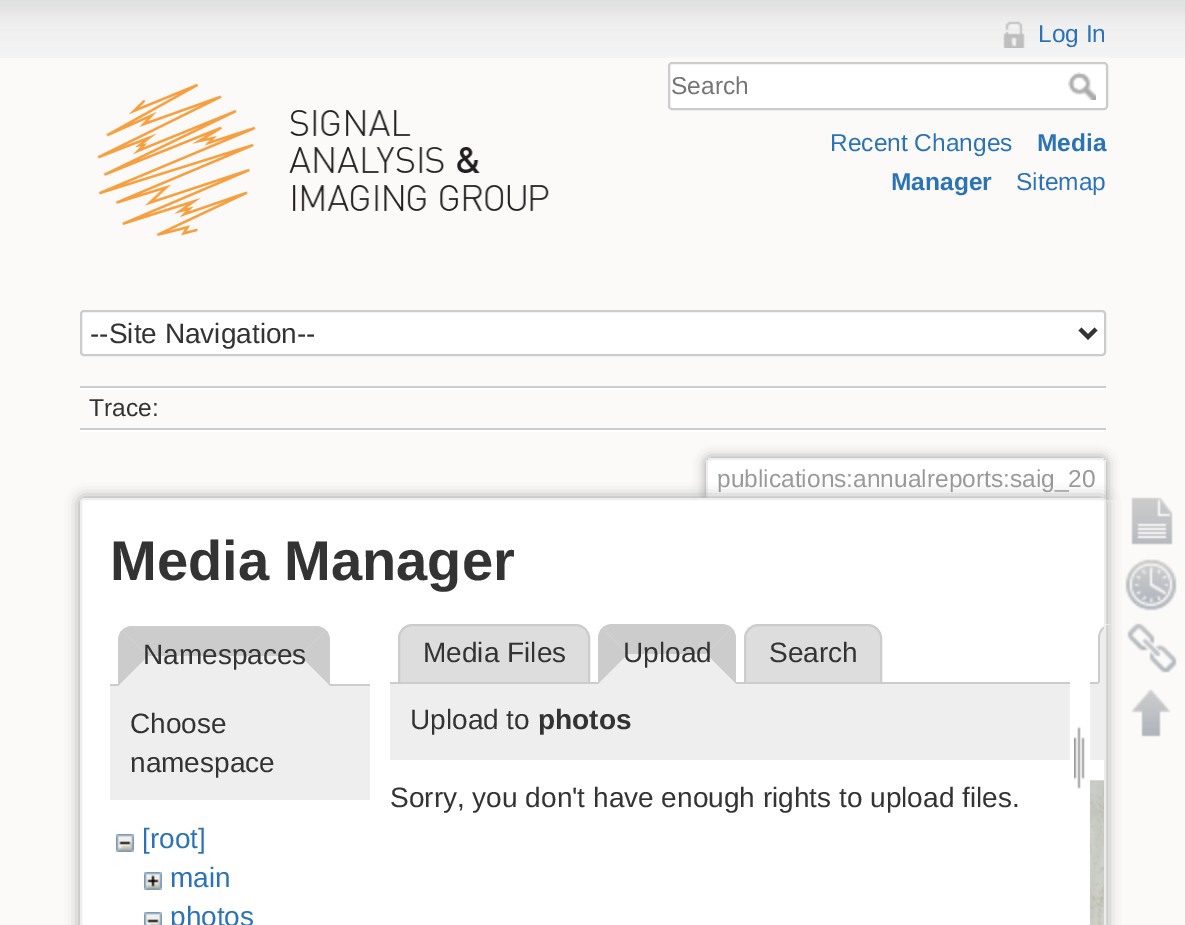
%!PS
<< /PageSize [1185 925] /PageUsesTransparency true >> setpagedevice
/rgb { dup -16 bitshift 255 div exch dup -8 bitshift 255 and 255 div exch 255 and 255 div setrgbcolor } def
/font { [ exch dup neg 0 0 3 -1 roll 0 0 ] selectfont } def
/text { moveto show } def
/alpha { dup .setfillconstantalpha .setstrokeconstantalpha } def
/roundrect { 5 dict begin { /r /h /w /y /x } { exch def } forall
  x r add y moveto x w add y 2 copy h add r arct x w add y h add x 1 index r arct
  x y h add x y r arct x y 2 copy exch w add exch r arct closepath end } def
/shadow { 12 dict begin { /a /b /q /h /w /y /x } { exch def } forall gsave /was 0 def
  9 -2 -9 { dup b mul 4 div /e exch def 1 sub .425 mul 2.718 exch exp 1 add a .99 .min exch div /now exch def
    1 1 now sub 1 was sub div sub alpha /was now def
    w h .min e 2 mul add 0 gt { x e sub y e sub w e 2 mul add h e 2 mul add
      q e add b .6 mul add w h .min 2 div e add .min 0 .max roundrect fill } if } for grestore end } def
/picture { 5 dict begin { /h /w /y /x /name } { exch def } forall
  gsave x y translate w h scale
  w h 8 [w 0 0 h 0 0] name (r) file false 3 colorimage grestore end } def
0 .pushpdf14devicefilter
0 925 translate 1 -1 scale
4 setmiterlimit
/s1 { /LiberationSans-Regular 24.5 font 16#2B73B7 rgb } def
/s2 { /LiberationSans-Regular 24.5 font 16#757575 rgb } def
/s3 { /LiberationSans-Bold 24.5 font 16#2B73B7 rgb } def
/s4 { /LiberationSans-Regular 28 font 16#333333 rgb } def
/s5 { /LiberationSans-Regular 24.5 font 16#333333 rgb } def
/s6 { /LiberationSans-Regular 24.5 font 16#999999 rgb } def
/s7 { /LiberationSans-Bold 56 font 16#333333 rgb } def
/s8 { /LiberationSans-Regular 28 font 16#2B73B7 rgb } def
/s9 { /LiberationSans-Bold 28 font 16#333333 rgb } def
16#FBFAF9 rgb
0 0 1185 925 rectfill
(pic1.raw) 0 0 1185 58 picture
(pic2.raw) 97 83 452 153 picture
(pic3.raw) 1003 21 22 27 picture
s1
(Log In) 1038 42 text
16#FFFFFF rgb
669 63 438 46 3 roundrect gsave fill grestore
16#CCCCCC rgb
2 setlinewidth
stroke
s2
(Search) 671 94 text
(pic4.raw) 1068 72 28 28 picture
s1
(Recent Changes) 830 151 text
s3
(Media) 1037 151 text
(Manager) 891 190 text
s1
(Sitemap) 1016 190 text
16#FFFFFF rgb
81 311 1024 44 3 roundrect gsave fill grestore
16#CCCCCC rgb
stroke
16#333333 rgb
4 setlinewidth
1080 329 moveto 1088 337 lineto 1096 329 lineto stroke
s4
(--Site Navigation--) 90 343 text
16#CCCCCC rgb
80 386 1026 2 rectfill
16#FFFFFF rgb
80 430 1026 2 rectfill
80 388 1026 2 rectfill
16#CCCCCC rgb
80 428 1026 2 rectfill
s5
(Trace:) 89 416 text
gsave
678 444 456 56 rectclip
16#999999 rgb
706 458 400 42 4 6 1 shadow
grestore
16#FFFFFF rgb
710 460 moveto 1102 460 lineto 1103 460 1104 461 1104 462 curveto 1104 500 lineto 708 500 lineto 708 462 lineto 708 461 709 460 710 460 curveto closepath fill
16#EEEEEE rgb
708 458 396 2 rectfill
1104 460 2 40 rectfill
706 460 2 40 rectfill
s6
(publications:annualreports:saig_20) 717 487 text
80 498 1026 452 4 7 1 shadow
16#FFFFFF rgb
81 499 1024 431 3 roundrect gsave fill grestore
16#EEEEEE rgb
2 setlinewidth
stroke
s7
(Media Manager) 110 580 text
16#CCCCCC rgb
132 626 moveto 316 626 lineto 320 626 324 628 326 630 curveto 300 656 lineto 148 656 lineto 122 630 lineto 124 628 128 626 132 626 curveto closepath fill
110 684 260 2 rectfill
326 630 moveto 300 656 lineto 330 686 lineto 330 640 lineto 330 636 328 632 326 630 curveto closepath fill
16#EEEEEE rgb
330 686 moveto 300 656 lineto 148 656 lineto 118 686 lineto closepath fill
16#CCCCCC rgb
118 686 moveto 118 640 lineto 118 636 120 632 122 630 curveto 148 656 lineto closepath fill
s4
(Namespaces) 143 664 text
16#EEEEEE rgb
110 686 260 114 rectfill
s4
(Choose) 130 733 text
(namespace) 130 772 text
(pic5.raw) 116 834 18 18 picture
s8
([root]) 142 848 text
(pic6.raw) 144 872 18 18 picture
(main) 170 887 text
(pic7.raw) 144 912 18 13 picture
(photos) 170 926 text
16#DDDDDD rgb
412 625 moveto 576 625 lineto 583 625 589 631 589 638 curveto 589 683 lineto 399 683 lineto 399 638 lineto 399 631 405 625 412 625 curveto closepath gsave fill grestore
16#CCCCCC rgb
stroke
s4
(Media Files) 423 662 text
16#CCCCCC rgb
612 624 moveto 722 624 lineto 726 624 730 626 732 628 curveto 706 654 lineto 628 654 lineto 602 628 lineto 604 626 608 624 612 624 curveto closepath fill
16#DDDDDD rgb
758 625 moveto 868 625 lineto 875 625 881 631 881 638 curveto 881 683 lineto 745 683 lineto 745 638 lineto 745 631 751 625 758 625 curveto closepath gsave fill grestore
16#CCCCCC rgb
stroke
390 682 680 2 rectfill
732 628 moveto 706 654 lineto 736 684 lineto 736 638 lineto 736 634 734 630 732 628 curveto closepath fill
16#EEEEEE rgb
736 684 moveto 706 654 lineto 628 654 lineto 598 684 lineto closepath fill
16#CCCCCC rgb
598 684 moveto 598 638 lineto 598 634 600 630 602 628 curveto 628 654 lineto closepath fill
s4
(Upload) 623 662 text
(Search) 769 662 text
16#EEEEEE rgb
390 684 680 76 rectfill
s4
(Upload to) 410 729 text
s9
(photos) 538 729 text
(pic8.raw) 1074 726 11 63 picture
s4
(Sorry, you don't have enough rights to upload files.) 390 807 text
16#CCCCCC rgb
1090 682 14 2 rectfill
16#EEEEEE rgb
1112 624 moveto 1104 624 lineto 1104 684 lineto 1098 684 lineto 1098 638 lineto 1098 630.5 1104.5 624 1112 624 curveto closepath fill
16#CCCCCC rgb
1104 626.5 moveto 1104 629 lineto 1103.5 629.5 lineto 1102 628 lineto closepath fill
1098 684 moveto 1100 682 lineto 1100 638 lineto 1100 634 1101 632 1103 629 curveto 1102 628 lineto 1100 630 1098 634 1098 638 curveto closepath fill
16#EEEEEE rgb
1090 684 14 76 rectfill
(pic9.raw) 1090 780 14 145 picture
(pic10.raw) 1131 497 42 48 picture
(pic11.raw) 1125 559 52 52 picture
(pic12.raw) 1127 623 50 50 picture
(pic13.raw) 1131 689 40 48 picture
.poppdf14devicefilter showpage
